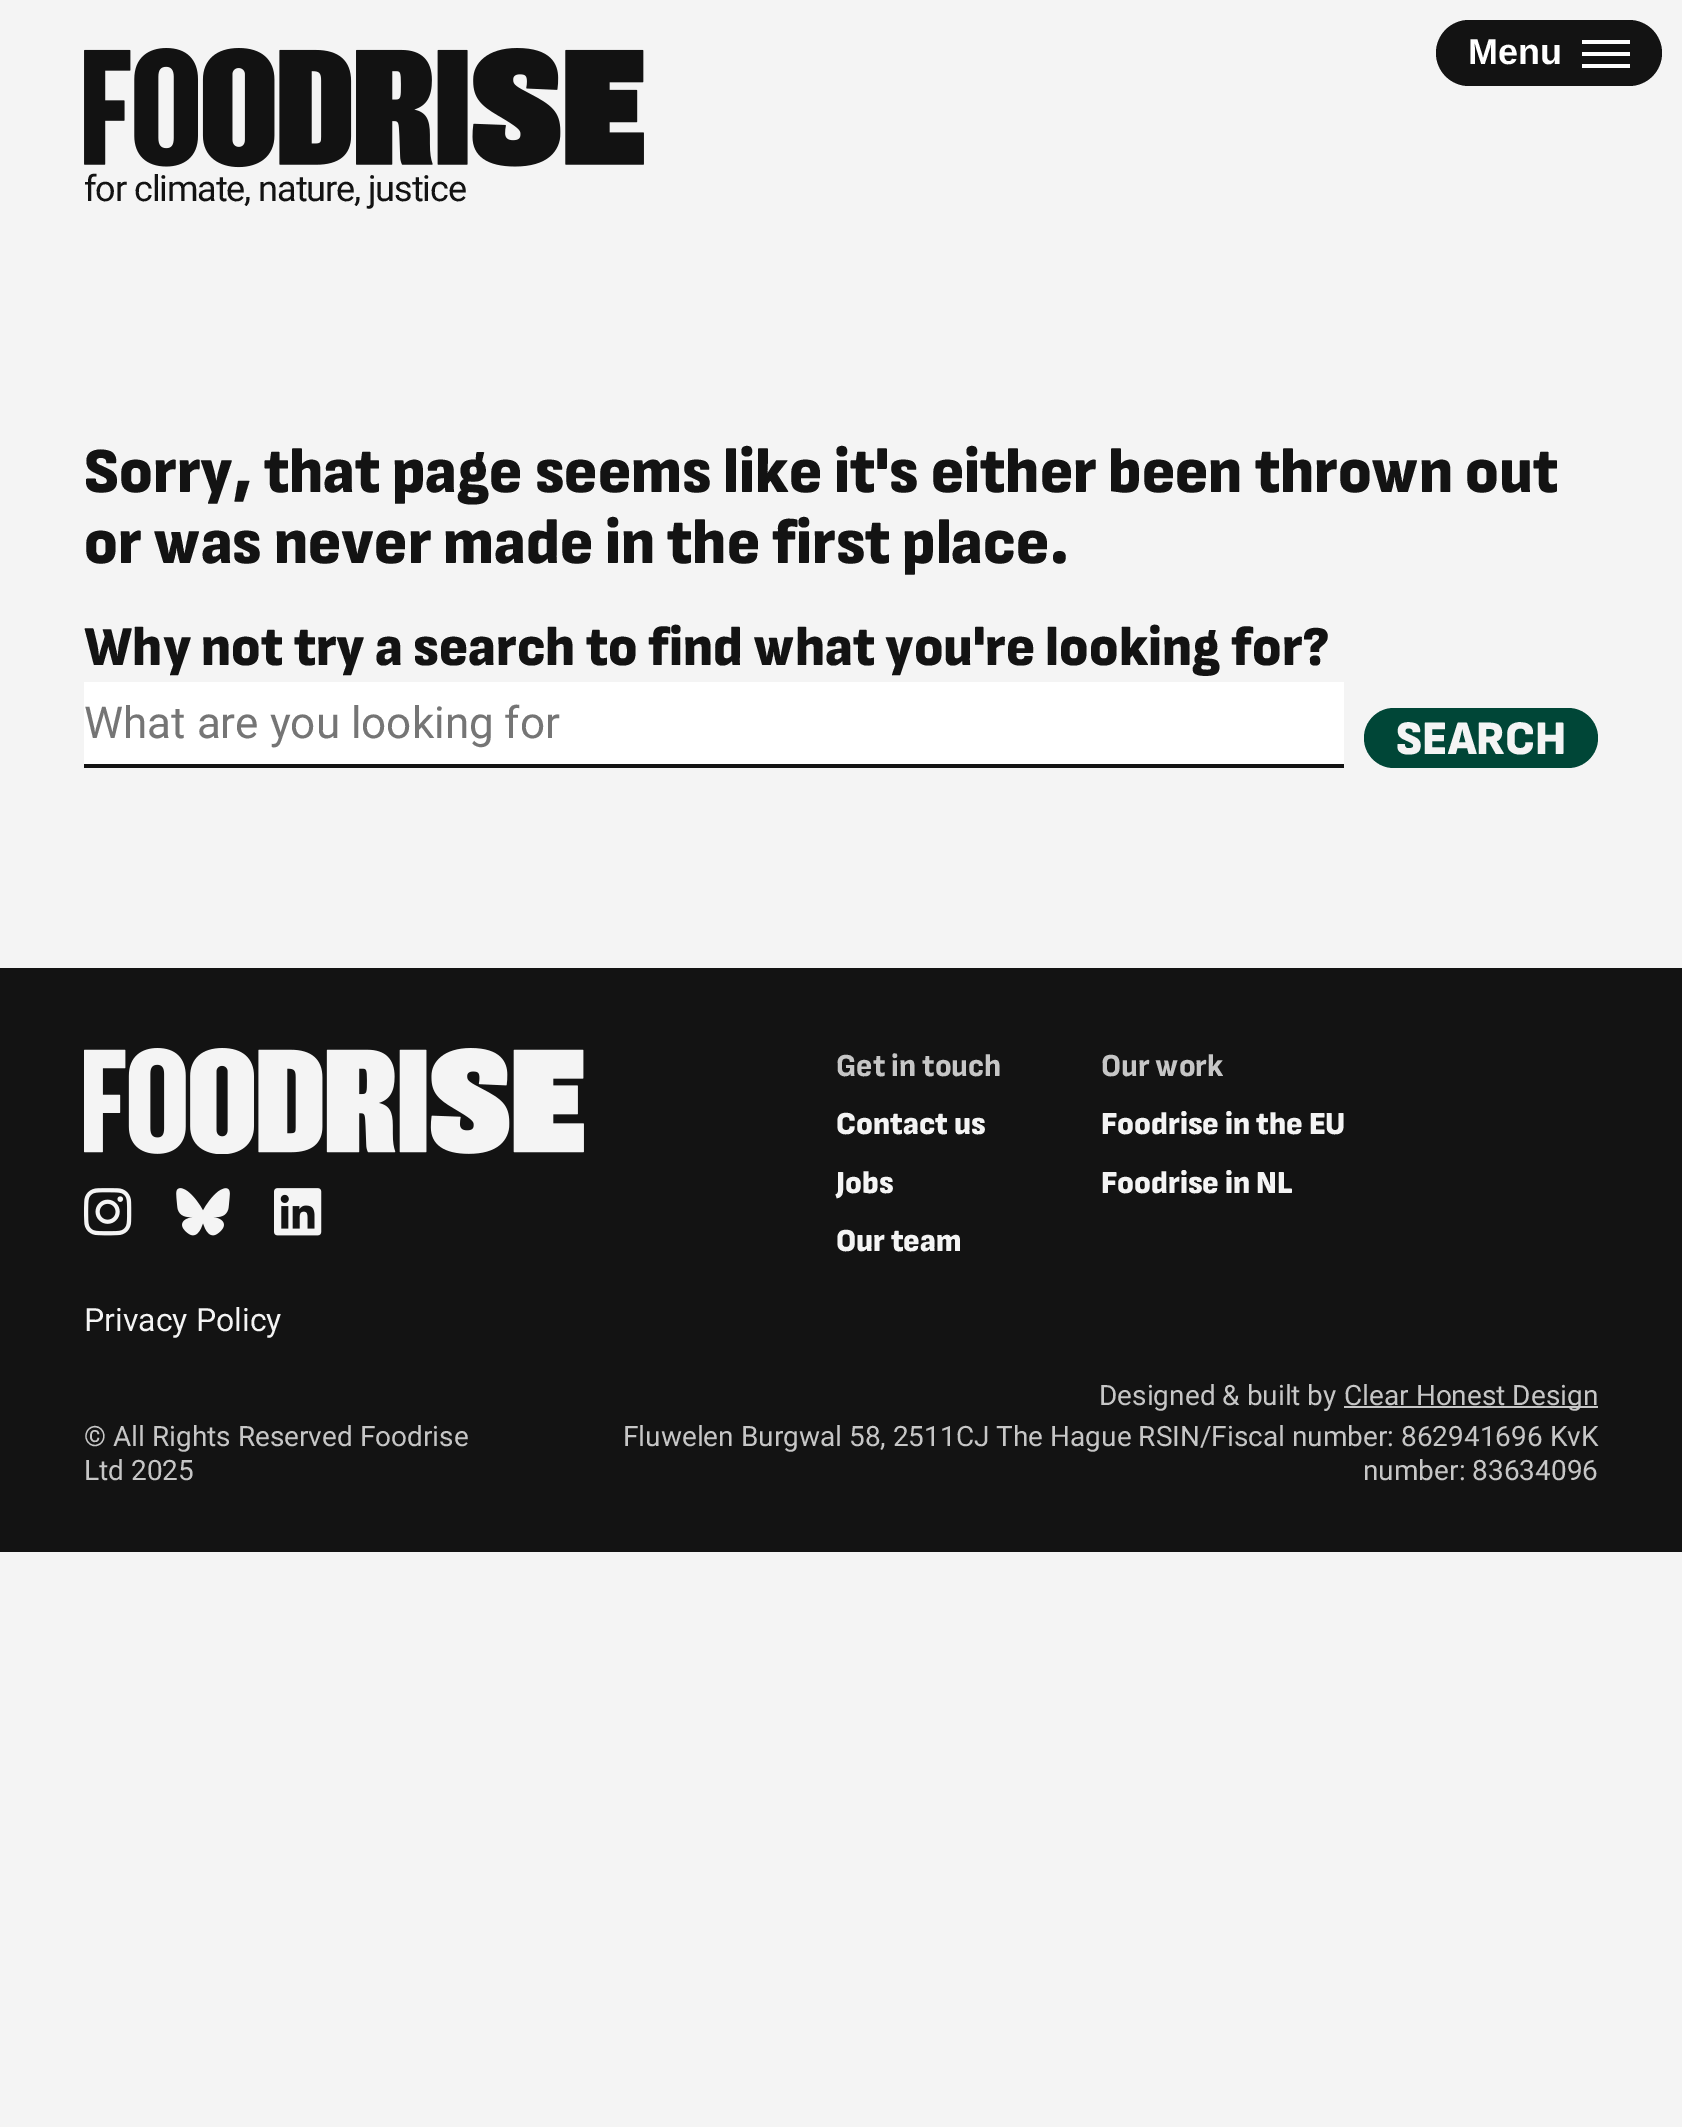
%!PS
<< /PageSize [1682 2127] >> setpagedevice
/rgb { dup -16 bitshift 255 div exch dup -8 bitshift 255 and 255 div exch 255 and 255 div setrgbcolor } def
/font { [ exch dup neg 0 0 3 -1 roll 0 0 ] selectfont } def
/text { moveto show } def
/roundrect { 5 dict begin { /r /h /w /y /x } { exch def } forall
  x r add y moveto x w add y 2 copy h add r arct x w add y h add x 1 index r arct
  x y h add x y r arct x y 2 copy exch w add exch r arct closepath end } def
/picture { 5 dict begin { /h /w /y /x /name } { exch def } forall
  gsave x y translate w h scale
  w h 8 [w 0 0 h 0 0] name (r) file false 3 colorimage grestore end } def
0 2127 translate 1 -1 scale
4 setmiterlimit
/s1 { /LiberationSans-Bold 36 font 16#FFFFFF rgb } def
/s2 { /SofiaSansSemiCondensed-Black 64 font 16#131313 rgb } def
/s3 { /SofiaSansSemiCondensed-Black 56 font 16#131313 rgb } def
/s4 { /Roboto-Regular 44 font 16#757575 rgb } def
/s5 { /SofiaSansSemiCondensed-Black 48 font 16#F4F4F4 rgb } def
/s6 { /SofiaSansSemiCondensed-ExtraBold 32 font 16#C6C6C6 rgb } def
/s7 { /SofiaSansSemiCondensed-Black 32 font 16#F4F4F4 rgb } def
/s8 { /Roboto-Regular 32 font 16#F4F4F4 rgb } def
/s9 { /Roboto-Regular 28 font 16#C6C6C6 rgb } def
16#F4F4F4 rgb
0 0 1682 2127 rectfill
16#131313 rgb
1436 20 226 66 33 roundrect fill
s1
(Menu) 1468 64 text
1582 40 48 4 rectfill
1582 52 48 4 rectfill
1582 64 48 4 rectfill
(pic1.raw) 84 48 560 120 picture
/Roboto-Regular 36 font
16#131313 rgb
84 201 moveto -1.1 0 (for climate, nature, justice) ashow
s2
(Sorry, that page seems like it's either been thrown out) 84 492 text
(or was never made in the first place.) 84 563 text
s3
(Why not try a search to find what you're looking for?) 84 665 text
16#FFFFFF rgb
84 682 1260 82 rectfill
16#131313 rgb
84 764 1260 4 rectfill
s4
(What are you looking for) 84 738 text
16#004637 rgb
1364 708 234 60 30 roundrect fill
s5
(SEARCH) 1396 754 text
16#131313 rgb
0 968 1682 584 rectfill
s6
(Get in touch) 836 1076 text
s7
(Contact us) 836 1134 text
(Jobs) 836 1193 text
(Our team) 836 1251 text
s6
(Our work) 1101 1076 text
s7
(Foodrise in the EU) 1101 1134 text
(Foodrise in NL) 1101 1193 text
(pic2.raw) 84 1048 500 106 picture
(pic3.raw) 84 1188 48 48 picture
(pic4.raw) 176 1188 54 48 picture
(pic5.raw) 274 1188 48 48 picture
s8
(Privacy Policy) 84 1331 text
s9
(© All Rights Reserved Foodrise) 84 1446 text
(Ltd 2025) 84 1480 text
(Designed & built by) 1099 1405 text
1344 1406 254 2 rectfill
(Clear Honest Design) 1344 1405 text
(Fluwelen Burgwal 58, 2511CJ The Hague RSIN/Fiscal number: 862941696 KvK) 623 1446 text
(number: 83634096) 1363 1480 text
showpage
